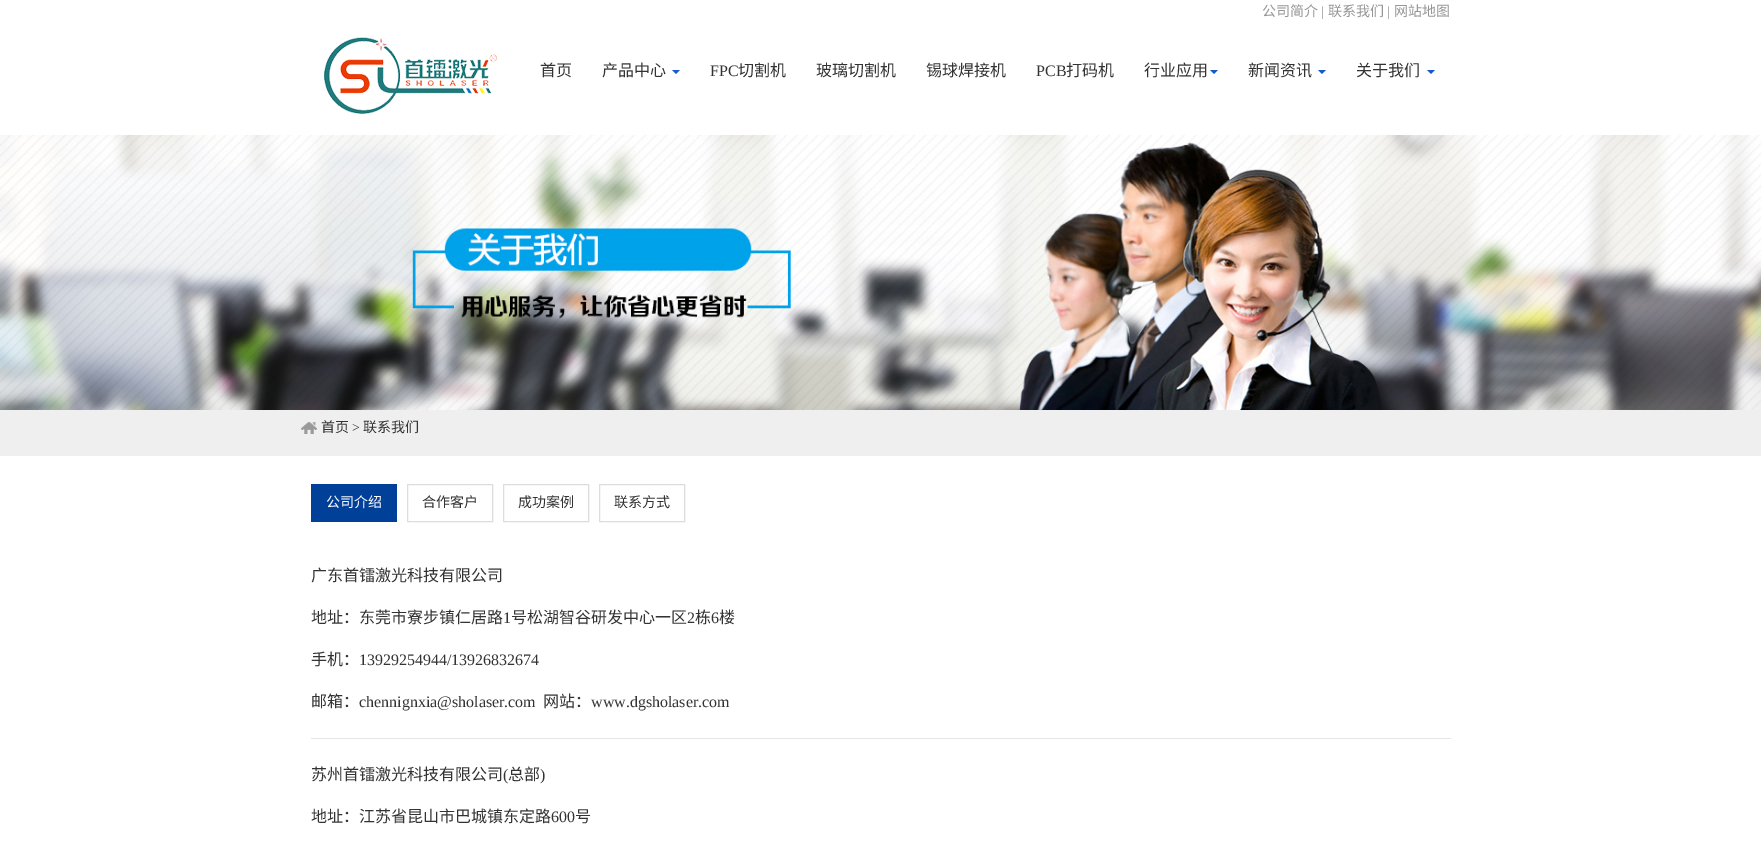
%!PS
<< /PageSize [1761 847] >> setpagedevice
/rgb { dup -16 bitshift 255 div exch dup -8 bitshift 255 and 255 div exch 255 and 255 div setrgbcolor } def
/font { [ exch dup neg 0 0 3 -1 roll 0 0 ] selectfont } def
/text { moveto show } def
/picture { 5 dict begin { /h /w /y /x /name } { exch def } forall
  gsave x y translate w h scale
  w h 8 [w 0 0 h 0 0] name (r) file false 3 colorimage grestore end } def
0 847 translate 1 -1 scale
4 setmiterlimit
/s1 { /NotoSansCJKSC-Regular 14 font 16#969696 rgb } def
/s2 { /LiberationSerif-Regular 14 font 16#969696 rgb } def
/s3 { /NotoSansCJKSC-Regular 16 font 16#333333 rgb } def
/s4 { /LiberationSerif-Regular 16 font 16#333333 rgb } def
/s5 { /NotoSansCJKSC-Regular 14 font 16#333333 rgb } def
/s6 { /LiberationSerif-Regular 14 font 16#333333 rgb } def
/s7 { /NotoSansCJKSC-Regular 14 font 16#FFFFFF rgb } def
16#FFFFFF rgb
0 0 1761 847 rectfill
s1
(公司简介) 1262 16 text
s2
(|) 1321 16 text
s1
(联系我们) 1328 16 text
s2
(|) 1387 16 text
s1
(网站地图) 1394 16 text
(pic1.raw) 324 37 173 77 picture
s3
(首页) 540 76 text
(产品中心) 602 76 text
16#145CCD rgb
672 70 moveto 680 70 lineto 676 74 lineto closepath fill
s4
(FPC) 710 76 text
s3
(切割机) 738 76 text
(玻璃切割机) 816 76 text
(锡球焊接机) 926 76 text
s4
(PCB) 1036 76 text
s3
(打码机) 1066 76 text
(行业应用) 1144 76 text
16#145CCD rgb
1210 70 moveto 1218 70 lineto 1214 74 lineto closepath fill
s3
(新闻资讯) 1248 76 text
16#145CCD rgb
1318 70 moveto 1326 70 lineto 1322 74 lineto closepath fill
s3
(关于我们) 1356 76 text
16#145CCD rgb
1427 70 moveto 1435 70 lineto 1431 74 lineto closepath fill
(pic2.raw) 0 135 1761 275 picture
16#EFEFEF rgb
0 410 1761 46 rectfill
(pic3.raw) 301 422 16 12 picture
s5
(首页) 321 432 text
s6
(>) 352 432 text
s5
(联系我们) 363 432 text
16#014099 rgb
311 484 86 38 rectfill
s7
(公司介绍) 326 507 text
16#DDDDDD rgb
407.5 484.5 85 37 rectstroke
s5
(合作客户) 422 507 text
16#DDDDDD rgb
503.5 484.5 85 37 rectstroke
s5
(成功案例) 518 507 text
16#DDDDDD rgb
599.5 484.5 85 37 rectstroke
s5
(联系方式) 614 507 text
s3
(广东首镭激光科技有限公司) 311 581 text
(地址：东莞市寮步镇仁居路) 311 623 text
s4
(1) 503 623 text
s3
(号松湖智谷研发中心一区) 511 623 text
s4
(2) 687 623 text
s3
(栋) 695 623 text
s4
(6) 711 623 text
s3
(楼) 719 623 text
(手机：) 311 665 text
s4
(13929254944/13926832674) 359 665 text
s3
(邮箱：) 311 707 text
s4
(chennignxia@sholaser.com) 359 707 text
s3
(网站：) 543 707 text
s4
(www.dgsholaser.com) 591 707 text
16#E5E5E5 rgb
311 738 1140 1 rectfill
s3
(苏州首镭激光科技有限公司) 311 780 text
s4
(\() 503 780 text
s3
(总部) 508 780 text
s4
(\)) 540 780 text
s3
(地址：江苏省昆山市巴城镇东定路) 311 822 text
s4
(600) 551 822 text
s3
(号) 575 822 text
showpage
